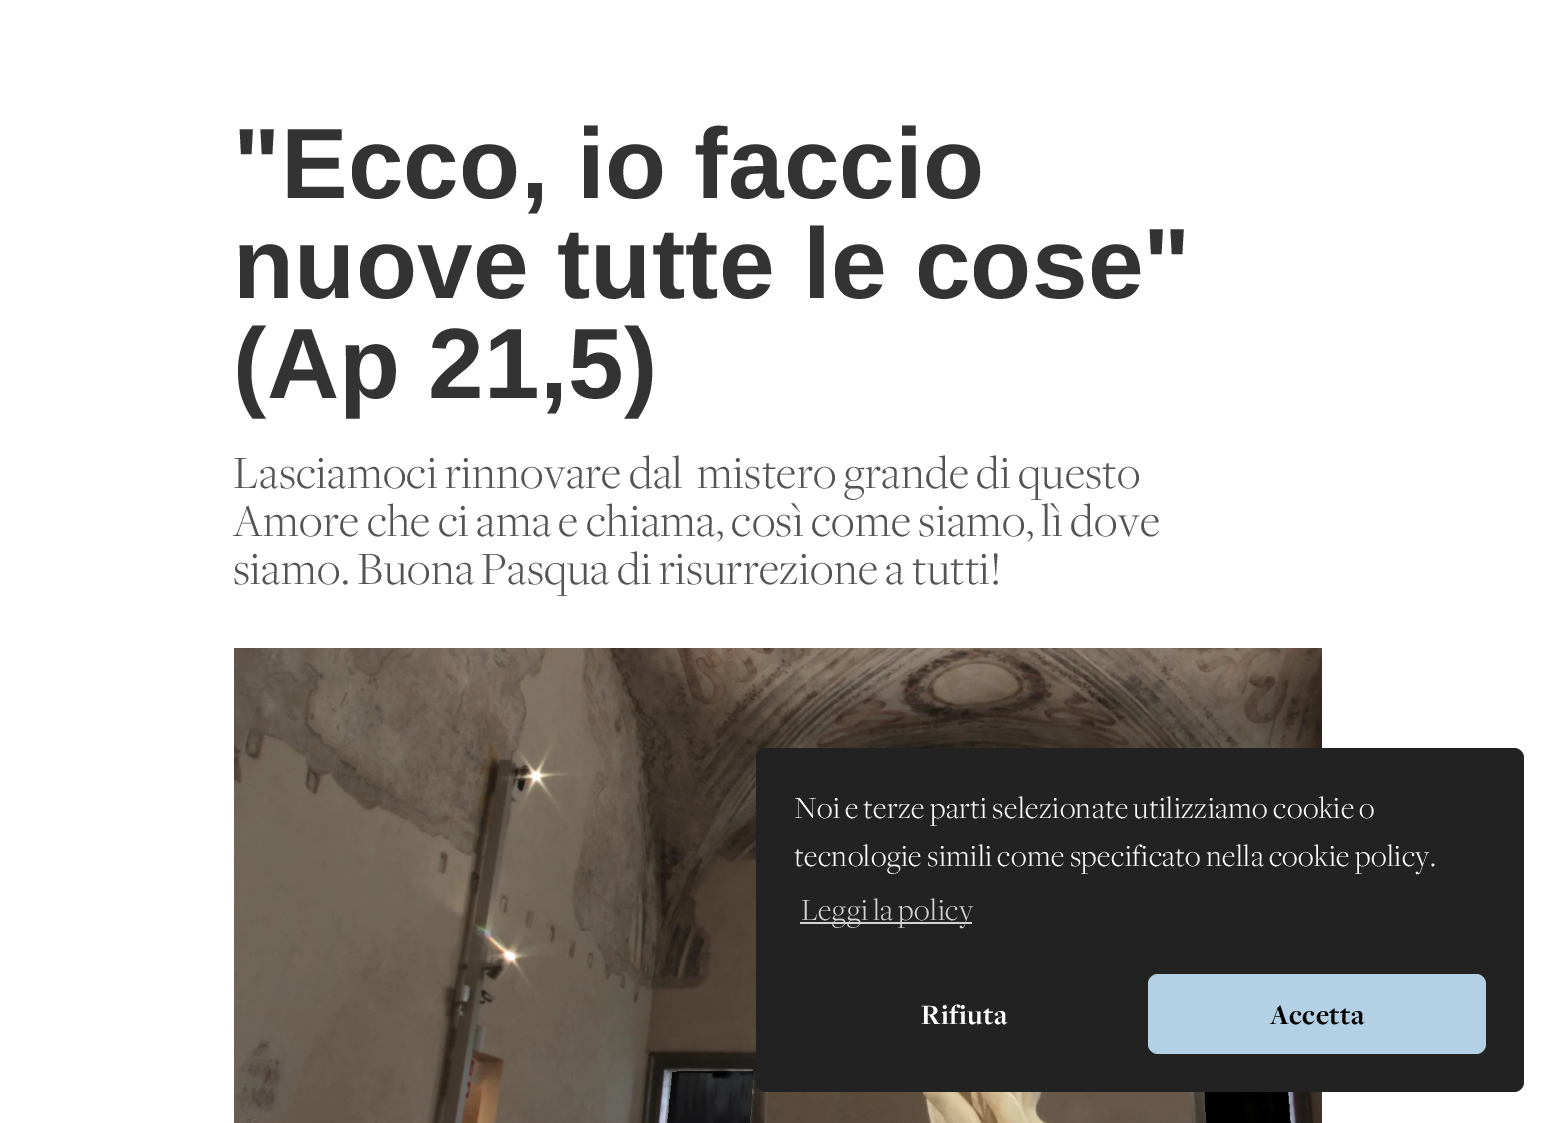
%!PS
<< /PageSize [1556 1123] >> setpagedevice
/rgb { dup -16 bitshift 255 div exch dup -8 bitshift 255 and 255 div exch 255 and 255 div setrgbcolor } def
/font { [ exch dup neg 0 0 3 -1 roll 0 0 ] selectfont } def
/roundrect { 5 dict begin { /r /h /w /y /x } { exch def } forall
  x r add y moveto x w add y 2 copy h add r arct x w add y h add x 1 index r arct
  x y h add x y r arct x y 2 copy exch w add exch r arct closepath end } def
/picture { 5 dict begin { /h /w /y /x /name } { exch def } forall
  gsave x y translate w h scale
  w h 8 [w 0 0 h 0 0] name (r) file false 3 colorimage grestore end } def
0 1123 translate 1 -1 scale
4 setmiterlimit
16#FFFFFF rgb
0 0 1556 1123 rectfill
/LiberationSans-Bold 100 font
16#333333 rgb
233 198 moveto 0.25 0 ("Ecco, io faccio) ashow
233 298 moveto 0.25 0 (nuove tutte le cose") ashow
233 398 moveto 0.25 0 (\(Ap 21,5\)) ashow
/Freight-Light 48 font
16#545454 rgb
233 488 moveto 0.4 0 (Lasciamoci rinnovare dal  mistero grande di questo) ashow
233 536 moveto 0.4 0 (Amore che ci ama e chiama, così come siamo, lì dove) ashow
233 584 moveto 0.4 0 (siamo. Buona Pasqua di risurrezione a tutti!) ashow
(pic1.raw) 234 648 1088 475 picture
16#222222 rgb
756 748 768 344 10 roundrect fill
/Freight-Light 32 font
16#FFFFFF rgb
794 818 moveto 0.4 0 (Noi e terze parti selezionate utilizziamo cookie o) ashow
794 866 moveto 0.4 0 (tecnologie simili come specificato nella cookie policy.) ashow
16#D3D3D3 rgb
800 922 172 2 rectfill
801 920 moveto 0.4 0 (Leggi la policy) ashow
/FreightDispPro-Bold 29 font
16#FFFFFF rgb
921 1024 moveto 0.4 0 (Rifiuta) ashow
16#B3D0E4 rgb
1148 974 338 80 10 roundrect fill
16#000000 rgb
1270 1024 moveto 0.4 0 (Accetta) ashow
showpage
